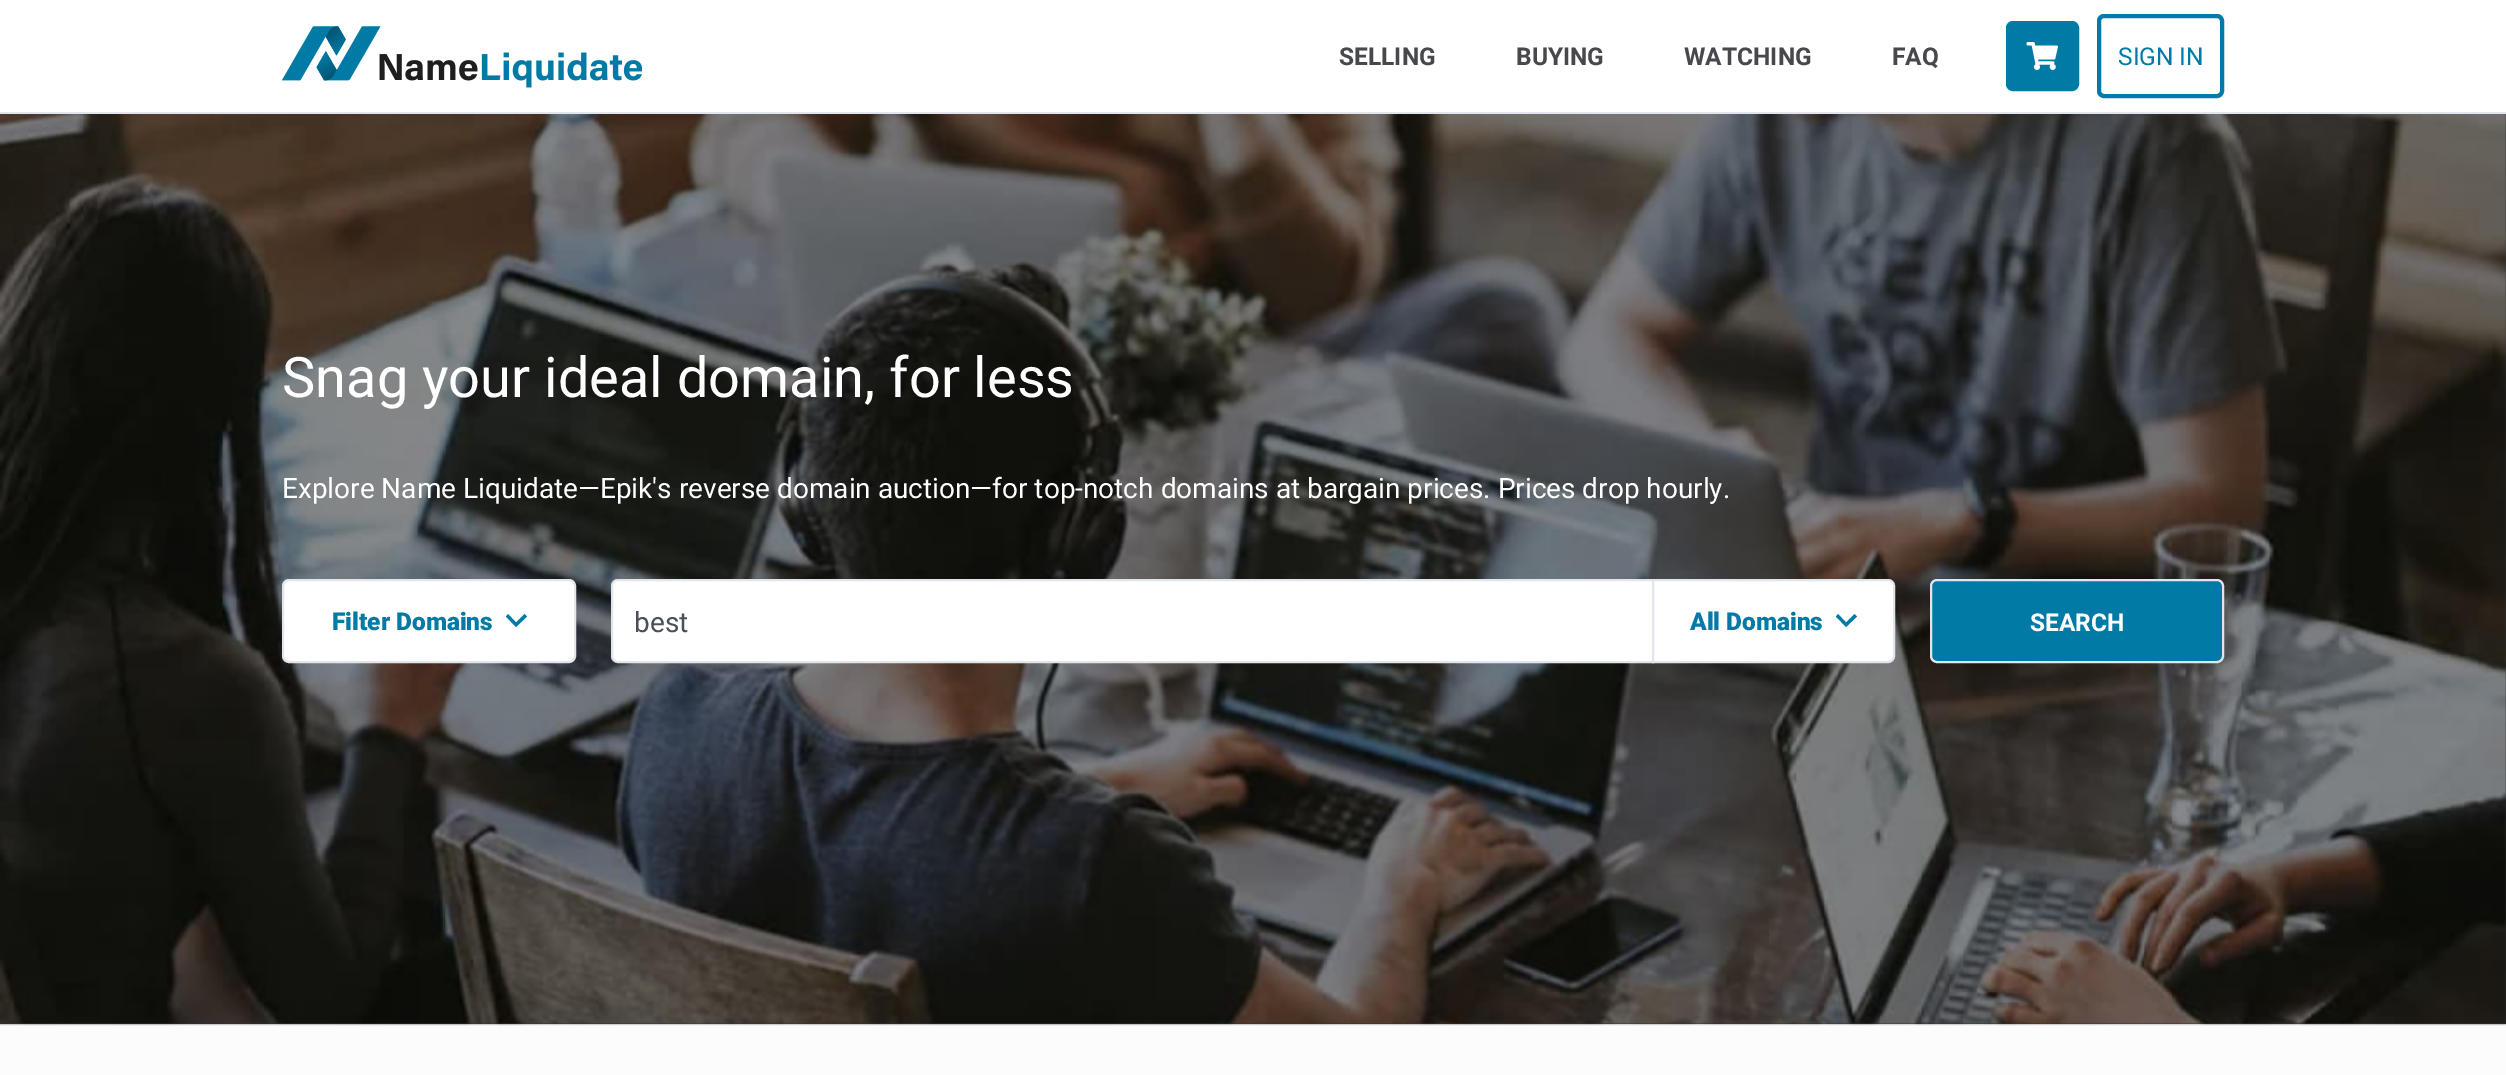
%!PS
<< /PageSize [2506 1075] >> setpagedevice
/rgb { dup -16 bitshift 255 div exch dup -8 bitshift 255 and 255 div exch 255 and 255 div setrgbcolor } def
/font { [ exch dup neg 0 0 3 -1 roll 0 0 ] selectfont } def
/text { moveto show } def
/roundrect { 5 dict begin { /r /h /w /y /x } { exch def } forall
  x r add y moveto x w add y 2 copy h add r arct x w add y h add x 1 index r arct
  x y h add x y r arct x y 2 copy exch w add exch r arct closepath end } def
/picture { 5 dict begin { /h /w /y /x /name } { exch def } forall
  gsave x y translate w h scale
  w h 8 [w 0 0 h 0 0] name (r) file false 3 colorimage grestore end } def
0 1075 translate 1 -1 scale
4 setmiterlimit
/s1 { /Roboto-Bold 24.5 font 16#47484B rgb } def
/s2 { /Roboto-Regular 24.5 font 16#017AA6 rgb } def
/s3 { /Roboto-Regular 56 font 16#FFFFFF rgb } def
/s4 { /Roboto-Regular 28 font 16#FFFFFF rgb } def
/s5 { /Roboto-Black 24.5 font 16#017AA6 rgb } def
/s6 { /Roboto-Regular 28 font 16#495057 rgb } def
/s7 { /Roboto-Bold 24.5 font 16#FFFFFF rgb } def
16#FCFCFD rgb
0 0 2506 1075 rectfill
16#FFFFFF rgb
0 0 2506 112 rectfill
16#E2E5EC rgb
0 112 2506 2 rectfill
(pic1.raw) 282 26 360 62 picture
s1
(SELLING) 1339 65 text
(BUYING) 1516 65 text
(WATCHING) 1684 65 text
(FAQ) 1892 65 text
16#017AA6 rgb
2007 22 71 68 6 roundrect gsave fill grestore
2 setlinewidth
stroke
(pic2.raw) 2026 42 32 28 picture
4 setlinewidth
2099 16 123 80 5 roundrect stroke
s2
(SIGN IN) 2118 65 text
16#333333 rgb
0 114 2506 910 rectfill
(pic3.raw) 0 114 2506 912 picture
s3
(Snag your ideal domain, for less) 282 397 text
s4
(Explore Name Liquidate—Epik's reverse domain auction—for top-notch domains at bargain prices. Prices drop hourly.) 282 498 text
283 580 292 82 6 roundrect gsave fill grestore
16#E2E5EC rgb
2 setlinewidth
stroke
s5
(Filter Domains) 332 630 text
524.5 614 moveto 516 622.5 lineto 508 614 lineto 506 616.5 lineto 516 627 lineto 527 616.5 lineto closepath fill
16#FFFFFF rgb
618 580 moveto 1653 580 lineto 1653 662 lineto 618 662 lineto 614.5 662 612 659.5 612 656 curveto 612 586 lineto 612 582.5 614.5 580 618 580 curveto closepath gsave fill grestore
16#E2E5EC rgb
stroke
s6
(best) 634 632 text
16#FFFFFF rgb
1653 580 moveto 1888 580 lineto 1891.5 580 1894 582.5 1894 586 curveto 1894 656 lineto 1894 659.5 1891.5 662 1888 662 curveto 1653 662 lineto closepath gsave fill grestore
16#E2E5EC rgb
stroke
s5
(All Domains) 1690 630 text
1854.5 614 moveto 1846 622.5 lineto 1838 614 lineto 1836 616.5 lineto 1846 627 lineto 1857 616.5 lineto closepath fill
1931 580 292 82 6 roundrect gsave fill grestore
16#E2E5EC rgb
stroke
s7
(SEARCH) 2030 631 text
showpage
